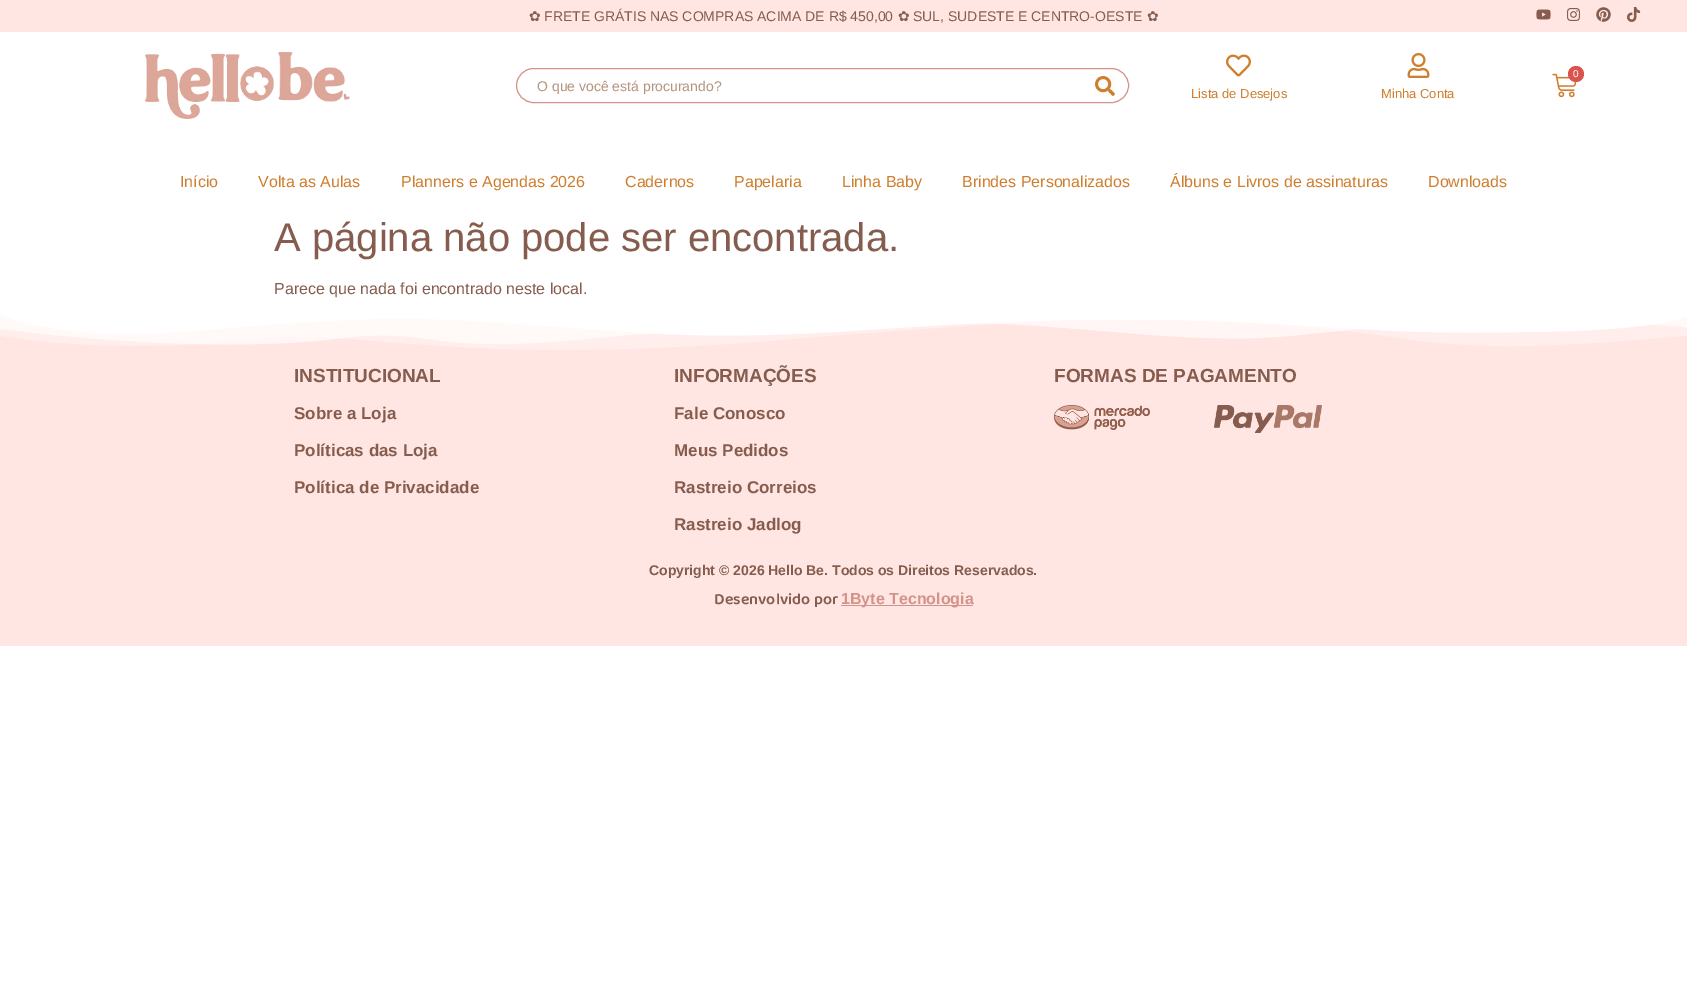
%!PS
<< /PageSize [1687 985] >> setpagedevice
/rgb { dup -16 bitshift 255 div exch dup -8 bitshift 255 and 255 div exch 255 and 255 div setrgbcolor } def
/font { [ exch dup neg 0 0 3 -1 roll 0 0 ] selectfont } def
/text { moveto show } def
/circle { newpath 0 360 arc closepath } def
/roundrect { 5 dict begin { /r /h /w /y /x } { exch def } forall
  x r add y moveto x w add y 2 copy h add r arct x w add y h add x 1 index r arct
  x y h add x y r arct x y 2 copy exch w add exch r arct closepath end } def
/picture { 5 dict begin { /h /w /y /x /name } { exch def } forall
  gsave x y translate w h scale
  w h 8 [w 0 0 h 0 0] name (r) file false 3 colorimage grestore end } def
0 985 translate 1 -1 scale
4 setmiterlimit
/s1 { /DejaVuSans-Regular 14 font 16#855C4D rgb } def
/s2 { /LiberationSans-Regular 14 font 16#855C4D rgb } def
/s3 { /LiberationSans-Regular 10 font 16#FFFFFF rgb } def
/s4 { /LiberationSans-Regular 14 font 16#B5947D rgb } def
/s5 { /LiberationSans-Regular 13 font 16#CE7E2D rgb } def
/s6 { /LiberationSans-Regular 16 font 16#CE7E2D rgb } def
/s7 { /LiberationSans-Regular 40 font 16#855C4D rgb } def
/s8 { /LiberationSans-Regular 16 font 16#855C4D rgb } def
/s9 { /LiberationSans-Bold 19 font 16#855C4D rgb } def
/s10 { /LiberationSans-Bold 17 font 16#855C4D rgb } def
/s11 { /LiberationSans-Bold 14 font 16#855C4D rgb } def
/s12 { /Baloo2-SemiBold 16 font 16#855C4D rgb } def
/s13 { /LiberationSans-Bold 16 font 16#D3938A rgb } def
16#FFFFFF rgb
0 0 1687 985 rectfill
16#FFE6E2 rgb
0 0 1687 32 rectfill
s1
(✿) 529 21 text
s2
(FRETE GRÁTIS NAS COMPRAS ACIMA DE R$ 450,00) 544 21 text
s1
(✿) 898 21 text
s2
(SUL, SUDESTE E CENTRO-OESTE) 913 21 text
s1
(✿) 1147 21 text
(pic1.raw) 1536 9 15 11 picture
(pic2.raw) 1567 8 13 13 picture
(pic3.raw) 1596 7 15 15 picture
(pic4.raw) 1627 7 14 15 picture
(pic5.raw) 145 52 205 67 picture
(pic6.raw) 1552 73 25 25 picture
16#D9534F rgb
1576 74 8 circle fill
s3
(0) 1573 77 text
16#D3938A rgb
516.5 68.5 612 34 17 roundrect stroke
s4
(O que você está procurando?) 537 91 text
(pic7.raw) 1095 76 20 20 picture
(pic8.raw) 1226 54 25 23 picture
s5
(Lista de Desejos) 1191 98 text
(pic9.raw) 1407 53 23 25 picture
(Minha Conta) 1381 98 text
s6
(Início) 180 187 text
(Volta as Aulas) 258 187 text
(Planners e Agendas 2026) 401 187 text
(Cadernos) 625 187 text
(Papelaria) 734 187 text
(Linha Baby) 842 187 text
(Brindes Personalizados) 962 187 text
(Álbuns e Livros de assinaturas) 1170 187 text
(Downloads) 1428 187 text
s7
(A página não pode ser encontrada.) 274 251 text
s8
(Parece que nada foi encontrado neste local.) 274 294 text
16#FFE6E2 rgb
0 316 1687 330 rectfill
(pic10.raw) 0 316 1687 34 picture
s9
(INSTITUCIONAL) 294 382 text
s10
(Sobre a Loja) 294 419 text
(Políticas das Loja) 294 456 text
(Política de Privacidade) 294 493 text
s9
(INFORMAÇÕES) 674 382 text
s10
(Fale Conosco) 674 419 text
(Meus Pedidos) 674 456 text
(Rastreio Correios) 674 493 text
(Rastreio Jadlog) 674 530 text
s9
(FORMAS DE PAGAMENTO) 1054 382 text
(pic11.raw) 1054 405 96 25 picture
(pic12.raw) 1214 405 108 28 picture
s11
(Copyright © 2026 Hello Be. Todos os Direitos Reservados.) 649 575 text
s12
(Desenvolvido por) 714 604 text
16#D3938A rgb
841 605 132 1 rectfill
s13
(1Byte Tecnologia) 841 604 text
showpage
